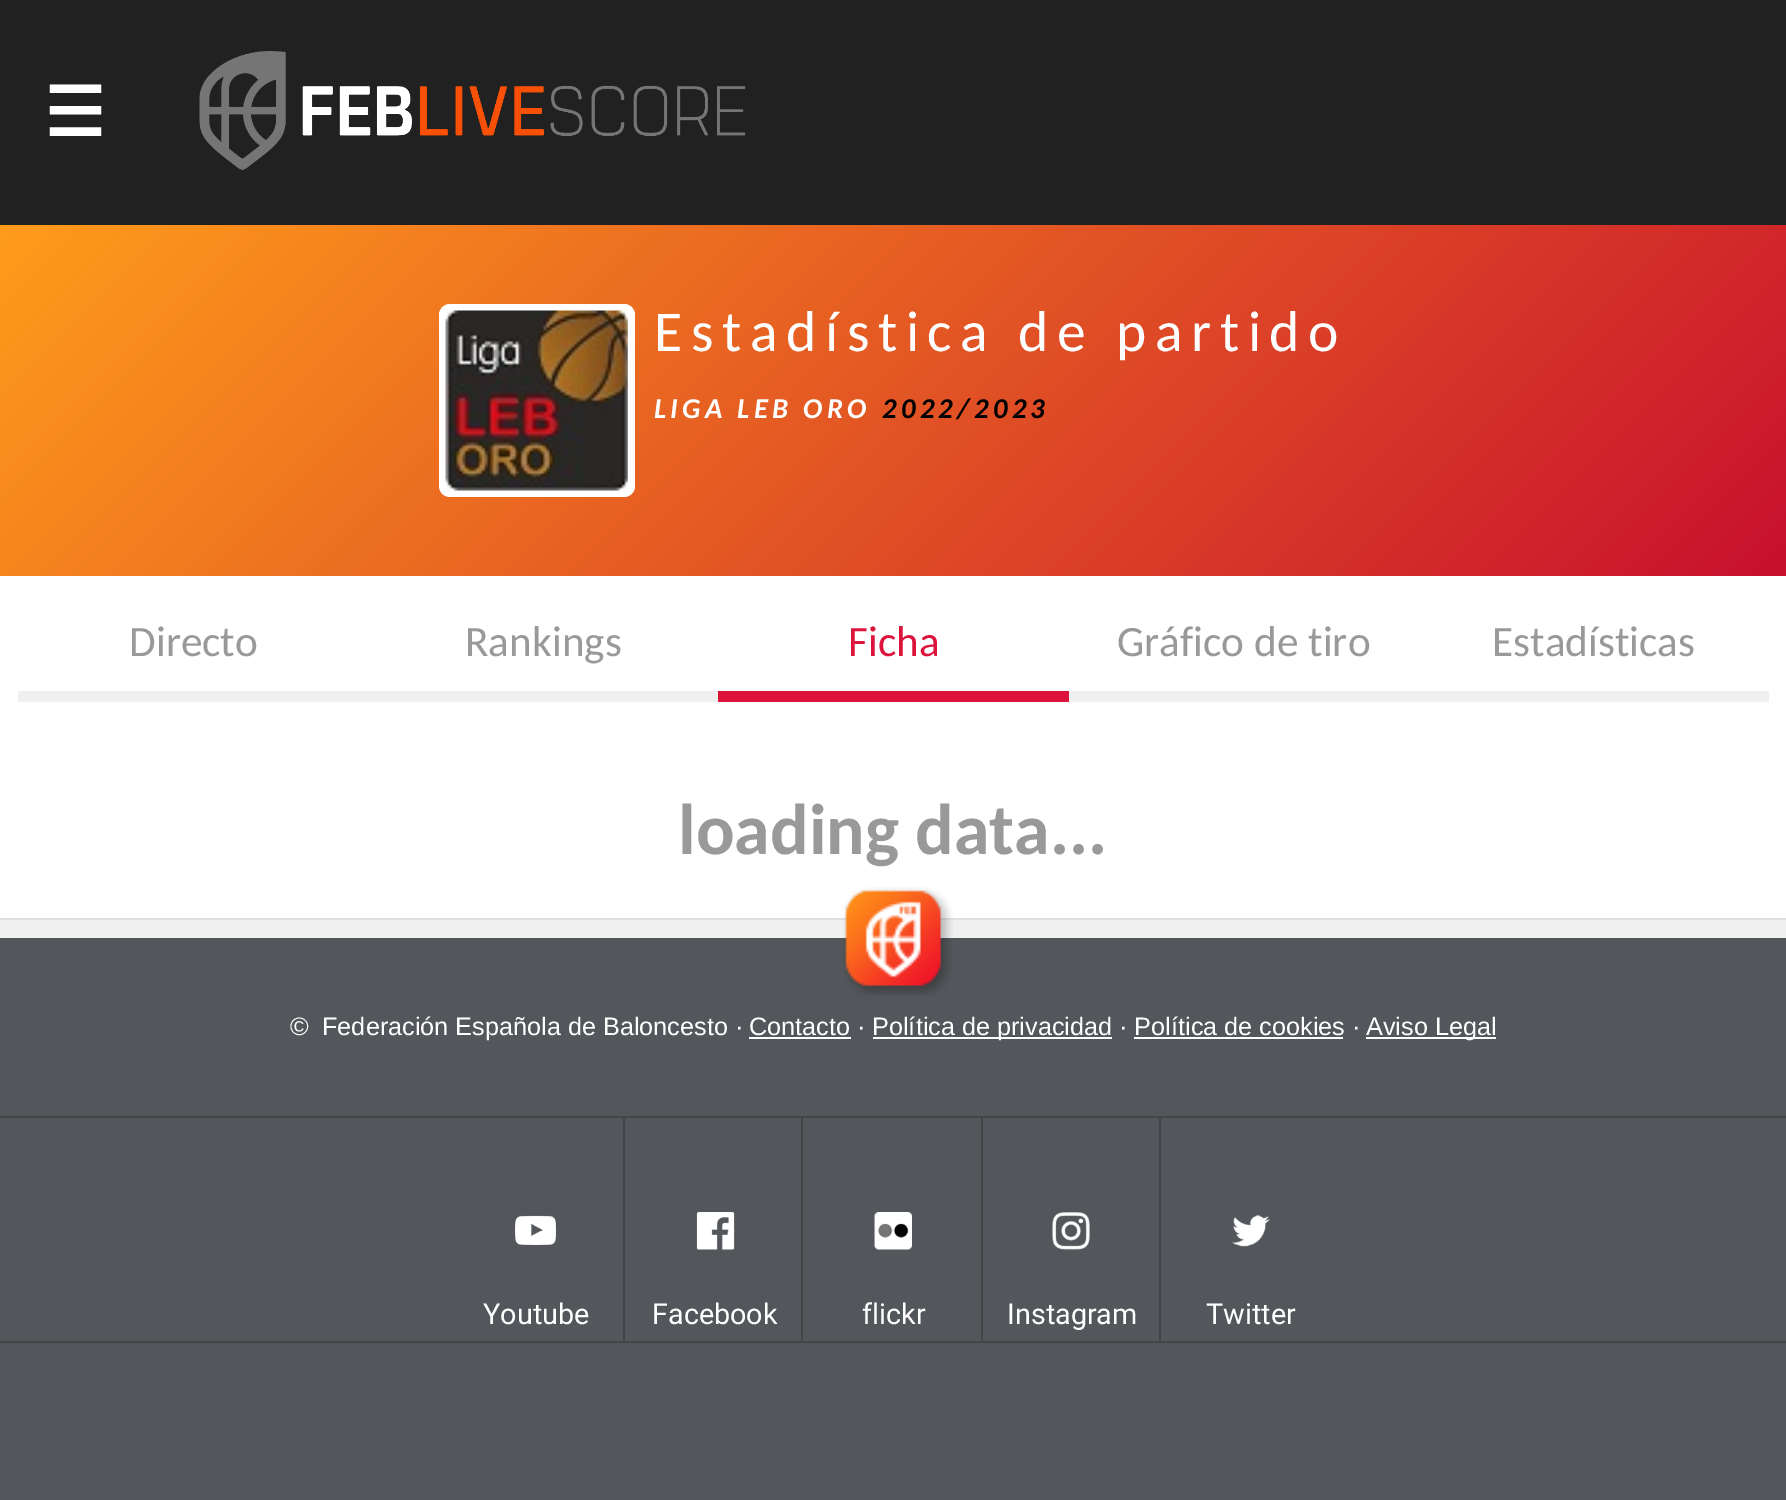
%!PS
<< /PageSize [1786 1500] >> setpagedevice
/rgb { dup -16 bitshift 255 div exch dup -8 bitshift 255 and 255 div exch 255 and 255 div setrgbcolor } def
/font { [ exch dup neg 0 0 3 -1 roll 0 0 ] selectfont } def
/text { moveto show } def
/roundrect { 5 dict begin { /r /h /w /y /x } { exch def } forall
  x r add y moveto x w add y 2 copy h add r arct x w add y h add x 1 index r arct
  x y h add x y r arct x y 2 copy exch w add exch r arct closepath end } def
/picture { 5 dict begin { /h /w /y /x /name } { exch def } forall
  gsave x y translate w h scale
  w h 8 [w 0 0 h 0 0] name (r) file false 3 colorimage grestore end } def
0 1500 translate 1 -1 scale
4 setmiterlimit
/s1 { /DejaVuSans-Bold 68 font 16#FFFFFF rgb } def
/s2 { /Carlito-Regular 43.25 font 16#999999 rgb } def
/s3 { /Carlito-Regular 43.25 font 16#DC143C rgb } def
/s4 { /Carlito-Bold 72 font 16#999999 rgb } def
/s5 { /LiberationSans-Regular 25.25 font 16#FFFFFF rgb } def
/s6 { /Roboto-Regular 28.75 font 16#FFFFFF rgb } def
16#53565A rgb
0 0 1786 1500 rectfill
16#212121 rgb
0 0 1786 225 rectfill
s1
(☰) 44 136 text
(pic1.raw) 199 51 547 119 picture
0 576 1786 342 rectfill
gsave 0 225 moveto 1786 225 lineto 1786 576 lineto 0 576 lineto closepath clip newpath
<< /ShadingType 2 /ColorSpace /DeviceRGB /Coords [359 -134 1428 935] /Extend [true true] /Function << /FunctionType 2 /Domain [0 1] /C0 [1 0.612 0.106] /C1 [0.784 0.063 0.18] /N 1 >> >> shfill grestore
439 304 196 193 11 roundrect fill
(pic2.raw) 445 310 183 181 picture
/Carlito-Regular 57.6 font
654 351 moveto 8.6 0 (Estadística de partido) ashow
/Carlito-BoldItalic 28.75 font
654 418 moveto 4.25 0 (LIGA LEB ORO) ashow
16#000000 rgb
882 418 moveto 4.25 0 (2022/2023) ashow
16#F0F0F0 rgb
18 691 700 11 rectfill
s2
(Directo) 129 656 text
(Rankings) 465 656 text
16#DC143C rgb
718 691 351 11 rectfill
(Ficha) 848 656 text
16#F0F0F0 rgb
1069 691 700 11 rectfill
s2
(Gráfico de tiro) 1117 656 text
(Estadísticas) 1492 656 text
s4
(loading data...) 678 854 text
16#F0F0F0 rgb
0 920 1786 18 rectfill
16#E0E0E0 rgb
0 918 1786 2 rectfill
(pic3.raw) 843 887 110 109 picture
s5
(©) 290 1035 text
(Federación Española de Baloncesto ·) 322 1035 text
(Contacto ·) 749 1035 text
749 1037 102 2 rectfill
873 1037 239 2 rectfill
(Política de privacidad · Política de cookies ·) 872 1035 text
1366 1037 130 2 rectfill
(Aviso Legal) 1366 1035 text
1134 1037 209 2 rectfill
16#444444 rgb
0 1116 1786 2 rectfill
0 1341 1786 2 rectfill
(pic4.raw) 515 1215 41 30 picture
s6
(Youtube) 483 1324 text
(pic5.raw) 696 1212 39 38 picture
16#444444 rgb
623 1118 2 223 rectfill
s6
(Facebook) 652 1324 text
(pic6.raw) 874 1212 38 38 picture
16#444444 rgb
801 1118 2 223 rectfill
s6
(flickr) 862 1324 text
(pic7.raw) 1052 1212 38 38 picture
16#444444 rgb
981 1118 2 223 rectfill
s6
(Instagram) 1007 1324 text
(pic8.raw) 1232 1215 38 32 picture
16#444444 rgb
1159 1118 2 223 rectfill
s6
(Twitter) 1206 1324 text
showpage
